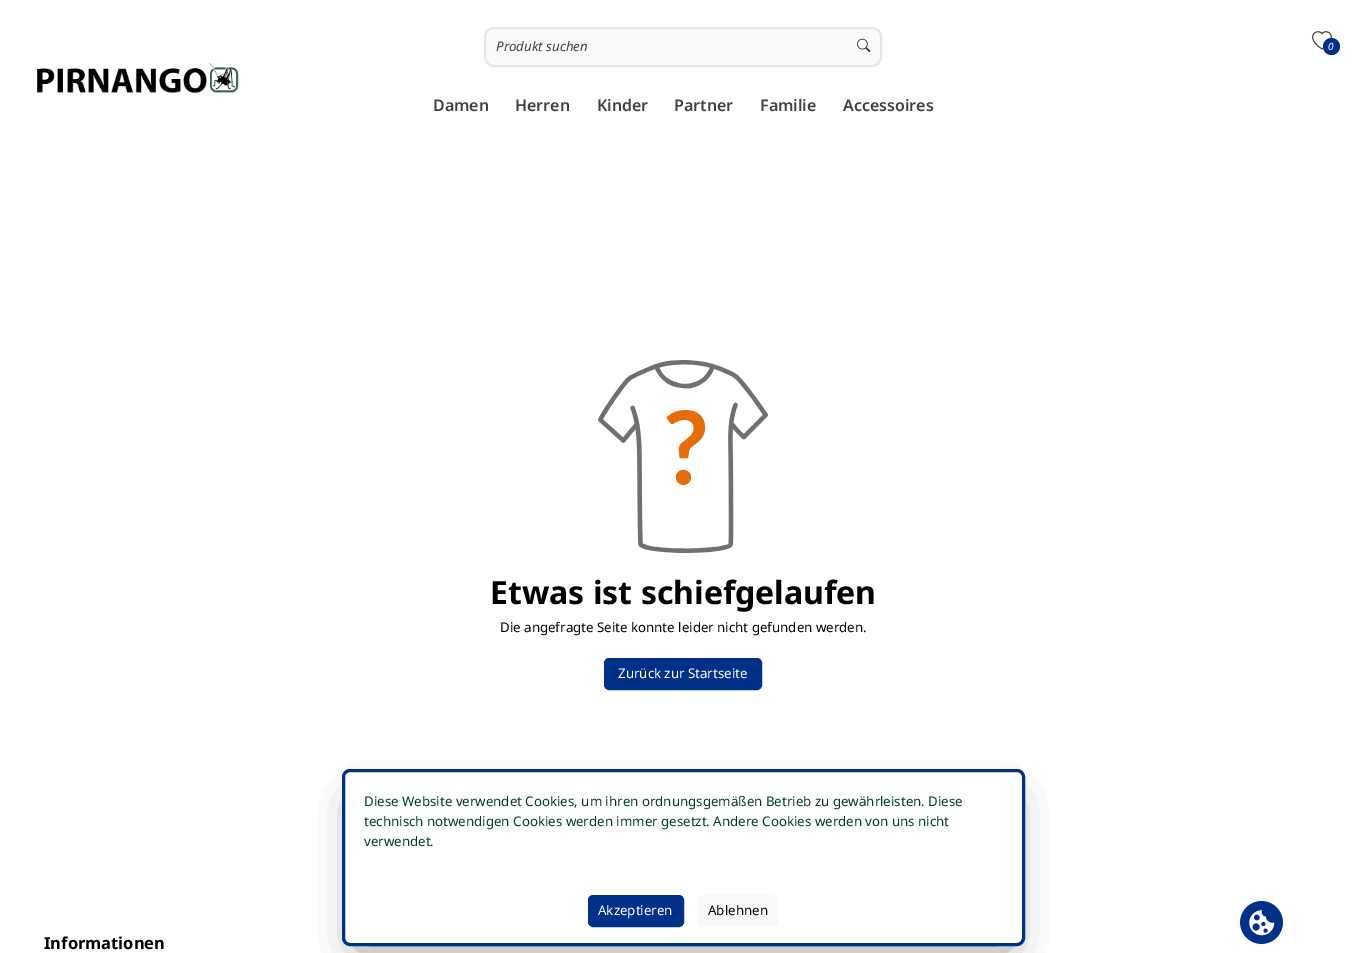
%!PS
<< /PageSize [1366 953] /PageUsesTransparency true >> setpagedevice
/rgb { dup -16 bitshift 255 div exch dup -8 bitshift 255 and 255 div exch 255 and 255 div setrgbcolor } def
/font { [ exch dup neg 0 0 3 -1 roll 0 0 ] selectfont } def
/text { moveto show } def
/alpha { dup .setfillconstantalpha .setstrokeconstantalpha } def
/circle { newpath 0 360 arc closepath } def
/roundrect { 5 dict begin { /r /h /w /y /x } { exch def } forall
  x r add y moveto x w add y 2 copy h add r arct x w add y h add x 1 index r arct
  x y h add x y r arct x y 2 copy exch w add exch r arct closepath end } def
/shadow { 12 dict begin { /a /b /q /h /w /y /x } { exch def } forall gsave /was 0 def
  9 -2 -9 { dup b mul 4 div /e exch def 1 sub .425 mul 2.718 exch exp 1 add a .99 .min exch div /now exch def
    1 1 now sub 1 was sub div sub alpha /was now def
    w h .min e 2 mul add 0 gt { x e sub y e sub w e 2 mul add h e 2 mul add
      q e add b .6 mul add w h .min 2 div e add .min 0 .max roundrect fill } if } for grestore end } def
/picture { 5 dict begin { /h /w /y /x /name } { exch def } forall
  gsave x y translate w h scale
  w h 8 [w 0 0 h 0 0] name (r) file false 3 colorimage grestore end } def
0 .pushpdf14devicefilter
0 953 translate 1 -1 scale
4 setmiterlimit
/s1 { /NotoSans-Italic 13.3 font 16#414141 rgb } def
/s2 { /NotoSans-SemiBold 16 font 16#414141 rgb } def
/s3 { /NotoSans-Italic 10 font 16#FFFFFF rgb } def
/s4 { /NotoSans-Bold 32 font 16#000000 rgb } def
/s5 { /NotoSans-Regular 13.3 font 16#000000 rgb } def
/s6 { /NotoSans-Regular 13.3 font 16#FFFFFF rgb } def
/s7 { /NotoSans-Regular 13.3 font 16#003E1F rgb } def
/s8 { /NotoSans-Bold 16.5 font 16#000000 rgb } def
16#FFFFFF rgb
0 0 1366 953 rectfill
16#FAFAFA rgb
485 28 396 38 9 roundrect gsave fill grestore
16#E6E6E6 rgb
2 setlinewidth
stroke
s1
(Produkt suchen) 496 51 text
(pic1.raw) 857 38 14 14 picture
s2
(Damen) 433 111 text
(Herren) 515 111 text
(Kinder) 597 111 text
(Partner) 674 111 text
(Familie) 760 111 text
(Accessoires) 843 111 text
(pic2.raw) 1312 31 20 19 picture
16#003087 rgb
1331.5 46.5 8.5 circle fill
s3
(0) 1328 50 text
(pic3.raw) 37 62 202 31 picture
(pic4.raw) 598 360 170 193 picture
s4
(Etwas ist schiefgelaufen) 490 604 text
s5
(Die angefragte Seite konnte leider nicht gefunden werden.) 500 632 text
16#003087 rgb
604.5 658.5 157 31 4.5 roundrect gsave fill grestore
1 setlinewidth
stroke
s6
(Zurück zur Startseite) 618 678 text
16#414141 rgb
362 805 643 137 0 20 0.82 shadow
16#FFFFFF rgb
343.5 770.5 680 174 6.5 roundrect gsave fill grestore
16#003087 rgb
3 setlinewidth
stroke
s7
(Diese Website verwendet Cookies, um ihren ordnungsgemäßen Betrieb zu gewährleisten. Diese) 364 806 text
(technisch notwendigen Cookies werden immer gesetzt. Andere Cookies werden von uns nicht) 364 826 text
(verwendet.) 364 846 text
16#003087 rgb
588.5 895.5 95 31 4.5 roundrect gsave fill grestore
1 setlinewidth
stroke
s6
(Akzeptieren) 598 915 text
16#F8F9FA rgb
697 895 81 32 5 roundrect fill
s5
(Ablehnen) 708 915 text
(pic5.raw) 1239 900 45 45 picture
s8
(Informationen) 44 949 text
.poppdf14devicefilter showpage
